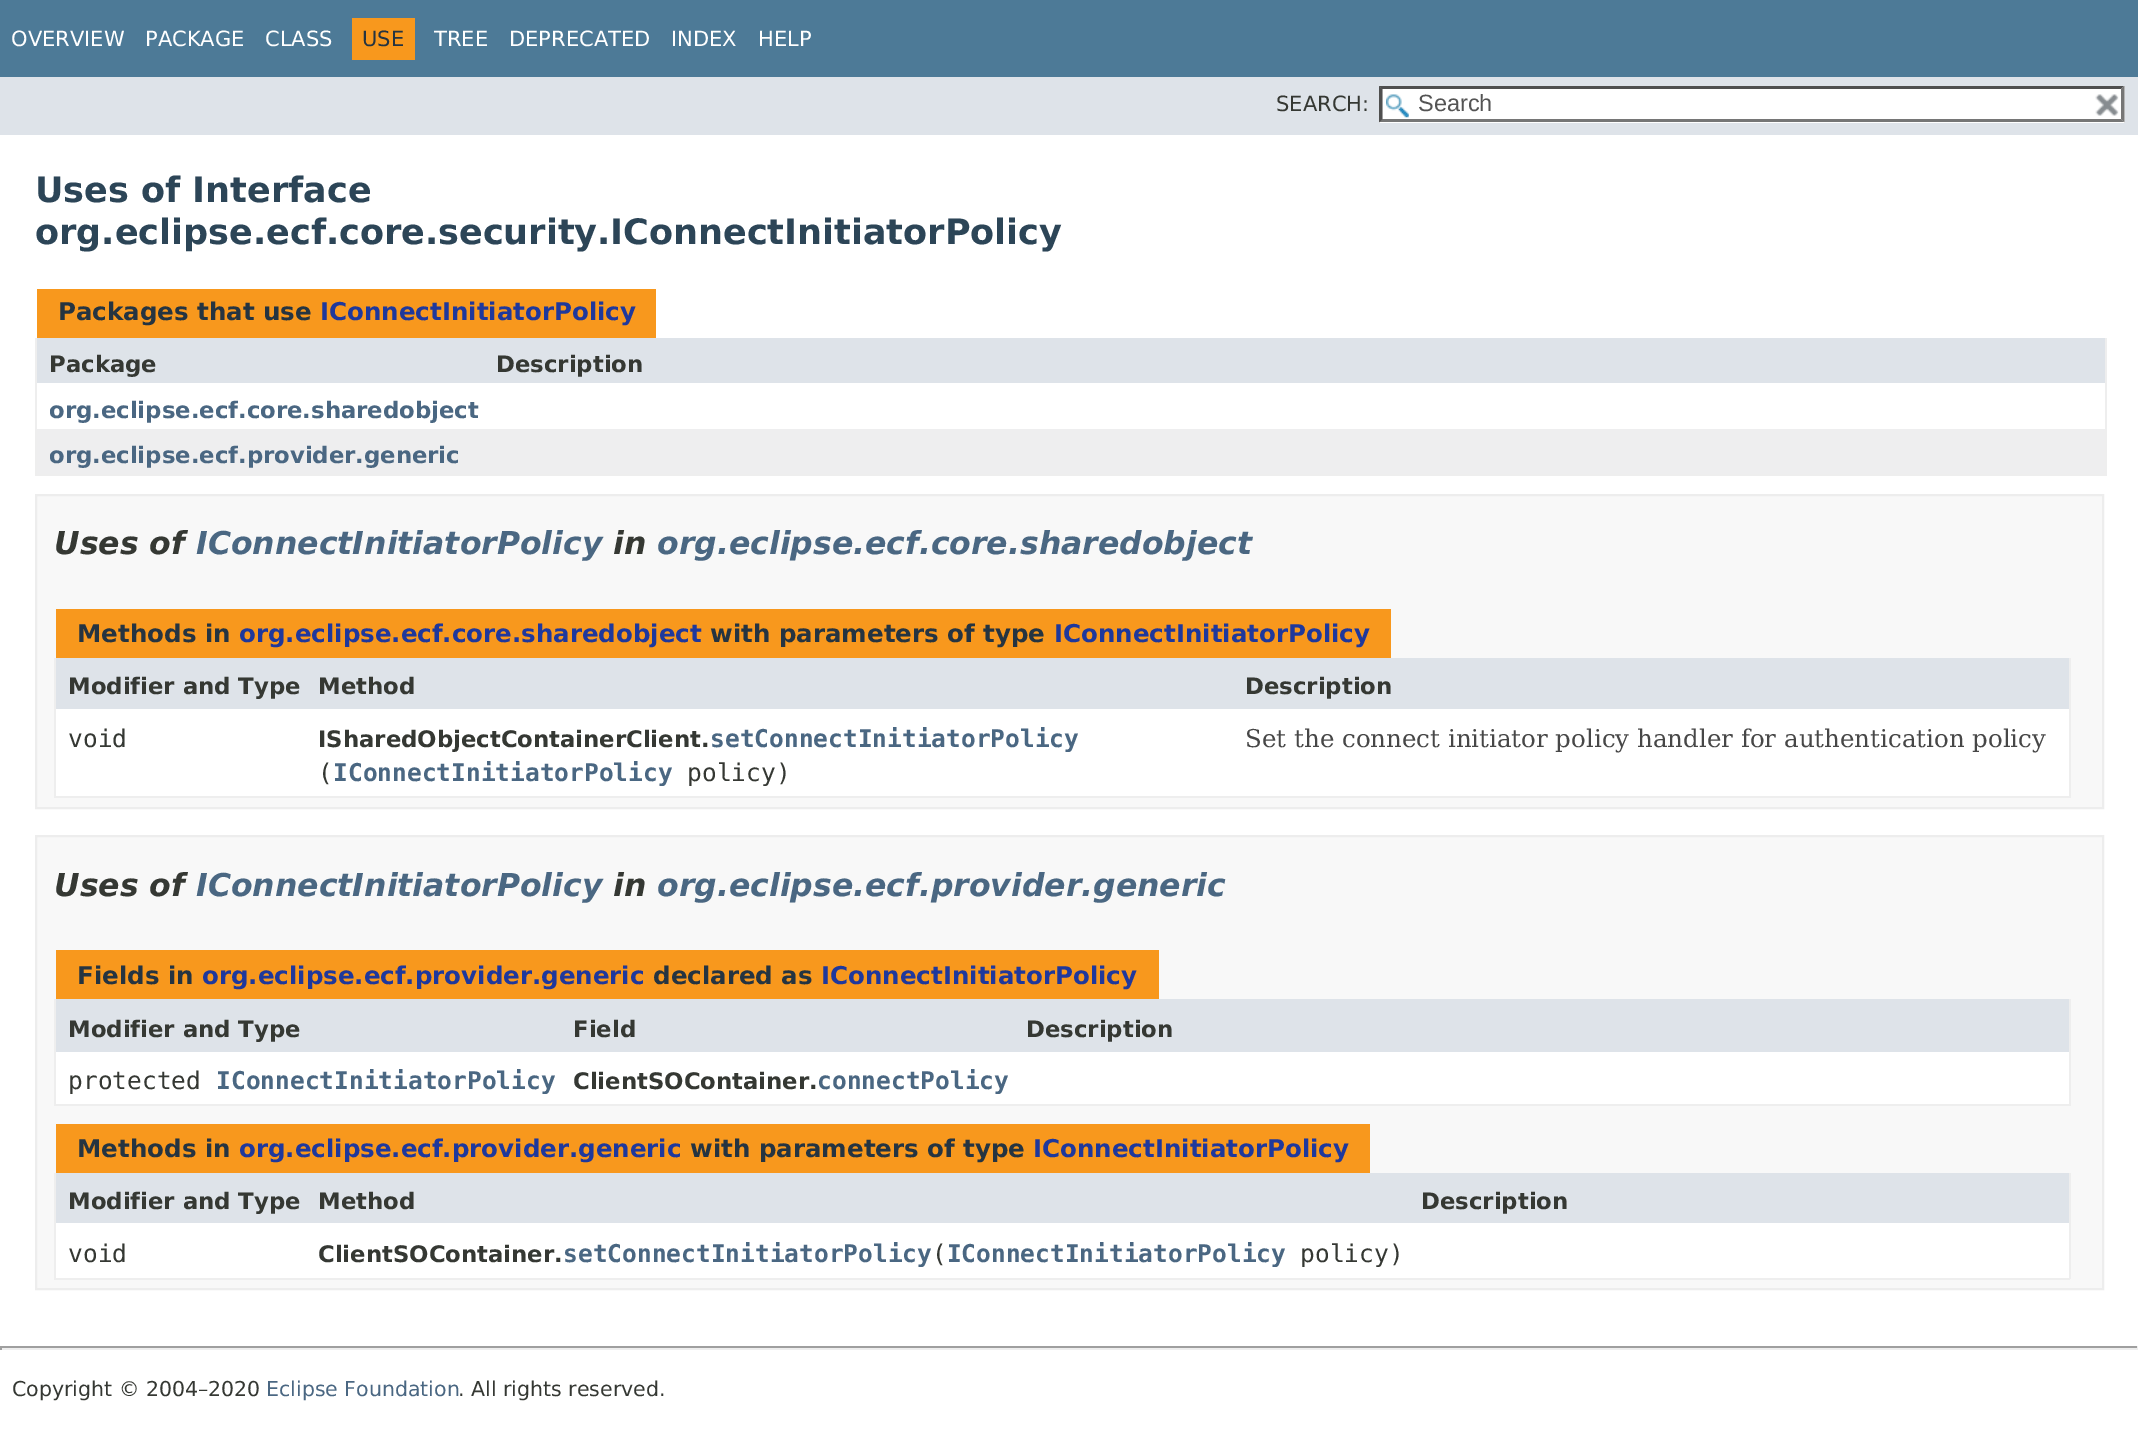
%!PS
<< /PageSize [2138 1455] >> setpagedevice
/rgb { dup -16 bitshift 255 div exch dup -8 bitshift 255 and 255 div exch 255 and 255 div setrgbcolor } def
/font { [ exch dup neg 0 0 3 -1 roll 0 0 ] selectfont } def
/text { moveto show } def
/picture { 5 dict begin { /h /w /y /x /name } { exch def } forall
  gsave x y translate w h scale
  w h 8 [w 0 0 h 0 0] name (r) file false 3 colorimage grestore end } def
0 1455 translate 1 -1 scale
4 setmiterlimit
/s1 { /DejaVuSans-Regular 21 font 16#FFFFFF rgb } def
/s2 { /DejaVuSans-Regular 21 font 16#253441 rgb } def
/s3 { /DejaVuSans-Regular 21 font 16#353833 rgb } def
/s4 { /LiberationSans-Regular 23.5 font 16#545454 rgb } def
/s5 { /DejaVuSans-Bold 35 font 16#2C4557 rgb } def
/s6 { /DejaVuSans-Bold 24.5 font 16#253441 rgb } def
/s7 { /DejaVuSans-Bold 24.5 font 16#1F389C rgb } def
/s8 { /DejaVuSans-Bold 22.75 font 16#353833 rgb } def
/s9 { /DejaVuSans-Bold 22.75 font 16#4A6782 rgb } def
/s10 { /DejaVuSans-BoldItalic 31.5 font 16#353833 rgb } def
/s11 { /DejaVuSans-BoldItalic 31.5 font 16#4A6782 rgb } def
/s12 { /DejaVuSansMono-Regular 24.5 font 16#353833 rgb } def
/s13 { /DejaVuSansMono-Bold 24.5 font 16#4A6782 rgb } def
/s14 { /DejaVuSerif-Regular 24.5 font 16#474747 rgb } def
/s15 { /DejaVuSans-Regular 20.5 font 16#353833 rgb } def
/s16 { /DejaVuSans-Regular 20.5 font 16#4A6782 rgb } def
16#FFFFFF rgb
0 0 2138 1455 rectfill
16#4D7A97 rgb
0 0 2138 77 rectfill
s1
(OVERVIEW) 11 46 text
(PACKAGE) 145 46 text
(CLASS) 265 46 text
16#F8981D rgb
352 18 63 42 rectfill
s2
(USE) 362 46 text
s1
(TREE) 434 46 text
(DEPRECATED) 509 46 text
(INDEX) 671 46 text
(HELP) 758 46 text
16#DEE3E9 rgb
0 77 2138 58 rectfill
s3
(SEARCH:) 1276 111 text
16#FFFFFF rgb
1379 86 746 37 rectfill
(pic1.raw) 1386 94 23 24 picture
16#4F4F4F rgb
1379 86 moveto 2124 86 lineto 2121 89 lineto 1382 89 lineto closepath fill
16#767676 rgb
2124.5 86 moveto 2124.5 122.5 lineto 2121 119 lineto 2121 89 lineto closepath fill
2124 122 moveto 1379 122 lineto 1382 119 lineto 2121 119 lineto closepath fill
16#4F4F4F rgb
1379 122.5 moveto 1379 86 lineto 1382.5 89 lineto 1382.5 119 lineto closepath fill
s4
(Search) 1418 111 text
(pic2.raw) 2095 94 24 22 picture
s5
(Uses of Interface) 35 202 text
(org.eclipse.ecf.core.security.IConnectInitiatorPolicy) 35 244 text
16#F8981D rgb
37 289 619 49 rectfill
s6
(Packages that use) 58 320 text
s7
(IConnectInitiatorPolicy) 320 320 text
16#EEEEEE rgb
2105 338 2 138 rectfill
35 474 2072 2 rectfill
35 338 2 138 rectfill
16#DEE3E9 rgb
37 338 2068 45 rectfill
s8
(Package) 49 372 text
(Description) 496 372 text
s9
(org.eclipse.ecf.core.sharedobject) 49 418 text
16#EEEEEF rgb
37 429 2068 45 rectfill
s9
(org.eclipse.ecf.provider.generic) 49 463 text
16#F8F8F8 rgb
36 495 moveto 2103 495 lineto 2103 808 lineto 36 808 lineto closepath gsave fill grestore
16#EDEDED rgb
2 setlinewidth
stroke
s10
(Uses of) 54 554 text
s11
(IConnectInitiatorPolicy) 196 554 text
s10
(in) 613 554 text
s11
(org.eclipse.ecf.core.sharedobject) 657 554 text
16#F8981D rgb
56 609 1335 49 rectfill
s6
(Methods in) 77 642 text
s7
(org.eclipse.ecf.core.sharedobject) 239 642 text
s6
(with parameters of type) 710 642 text
s7
(IConnectInitiatorPolicy) 1054 642 text
16#EEEEEE rgb
2069 658 2 140 rectfill
54 796 2016 2 rectfill
54 658 2 140 rectfill
16#DEE3E9 rgb
56 658 1176 51 rectfill
s8
(Modifier and Type) 68 694 text
(Method) 318 694 text
16#DEE3E9 rgb
1232 658 837 51 rectfill
s8
(Description) 1245 694 text
16#FFFFFF rgb
56 709 1176 87 rectfill
s12
(void) 68 747 text
s8
(ISharedObjectContainerClient.) 318 747 text
s13
(setConnectInitiatorPolicy) 710 747 text
s12
(\() 318 781 text
s13
(IConnectInitiatorPolicy) 333 781 text
s12
(policy\)) 687 781 text
16#FFFFFF rgb
1232 709 837 87 rectfill
s14
(Set the connect initiator policy handler for authentication policy) 1245 747 text
16#F8F8F8 rgb
36 836 moveto 2103 836 lineto 2103 1289 lineto 36 1289 lineto closepath gsave fill grestore
16#EDEDED rgb
stroke
s10
(Uses of) 54 896 text
s11
(IConnectInitiatorPolicy) 196 896 text
s10
(in) 613 896 text
s11
(org.eclipse.ecf.provider.generic) 657 896 text
16#F8981D rgb
56 950 1103 49 rectfill
s6
(Fields in) 77 984 text
s7
(org.eclipse.ecf.provider.generic) 202 984 text
s6
(declared as) 653 984 text
s7
(IConnectInitiatorPolicy) 821 984 text
16#EEEEEE rgb
2069 999 2 107 rectfill
54 1104 2016 2 rectfill
54 999 2 107 rectfill
16#DEE3E9 rgb
56 999 959 53 rectfill
s8
(Modifier and Type) 68 1037 text
(Field) 573 1037 text
16#DEE3E9 rgb
1015 999 1054 53 rectfill
s8
(Description) 1026 1037 text
16#FFFFFF rgb
56 1052 959 52 rectfill
s12
(protected) 68 1089 text
s13
(IConnectInitiatorPolicy) 216 1089 text
s8
(ClientSOContainer.) 573 1089 text
s13
(connectPolicy) 817 1089 text
16#FFFFFF rgb
1015 1052 1054 52 rectfill
16#F8981D rgb
56 1124 1314 49 rectfill
s6
(Methods in) 77 1157 text
s7
(org.eclipse.ecf.provider.generic) 239 1157 text
s6
(with parameters of type) 690 1157 text
s7
(IConnectInitiatorPolicy) 1033 1157 text
16#EEEEEE rgb
2069 1173 2 106 rectfill
54 1278 2016 2 rectfill
54 1173 2 106 rectfill
16#DEE3E9 rgb
56 1173 1353 50 rectfill
s8
(Modifier and Type) 68 1209 text
(Method) 318 1209 text
16#DEE3E9 rgb
1409 1173 660 50 rectfill
s8
(Description) 1421 1209 text
16#FFFFFF rgb
56 1223 1353 55 rectfill
s12
(void) 68 1262 text
s13
(setConnectInitiatorPolicy IConnectInitiatorPolicy) 563 1262 text
s8
(ClientSOContainer.) 318 1262 text
s12
(\() 932 1262 text
(policy\)) 1300 1262 text
16#FFFFFF rgb
1409 1223 660 55 rectfill
16#9F9F9F rgb
0 1346 2138 2 rectfill
16#EEEEEE rgb
2137 1346 1 4 rectfill
0 1348 2138 2 rectfill
16#9F9F9F rgb
0 1346 2 4 rectfill
s15
(Copyright © 2004–2020) 12 1396 text
s16
(Eclipse Foundation) 266 1396 text
s15
(. All rights reserved.) 458 1396 text
showpage
